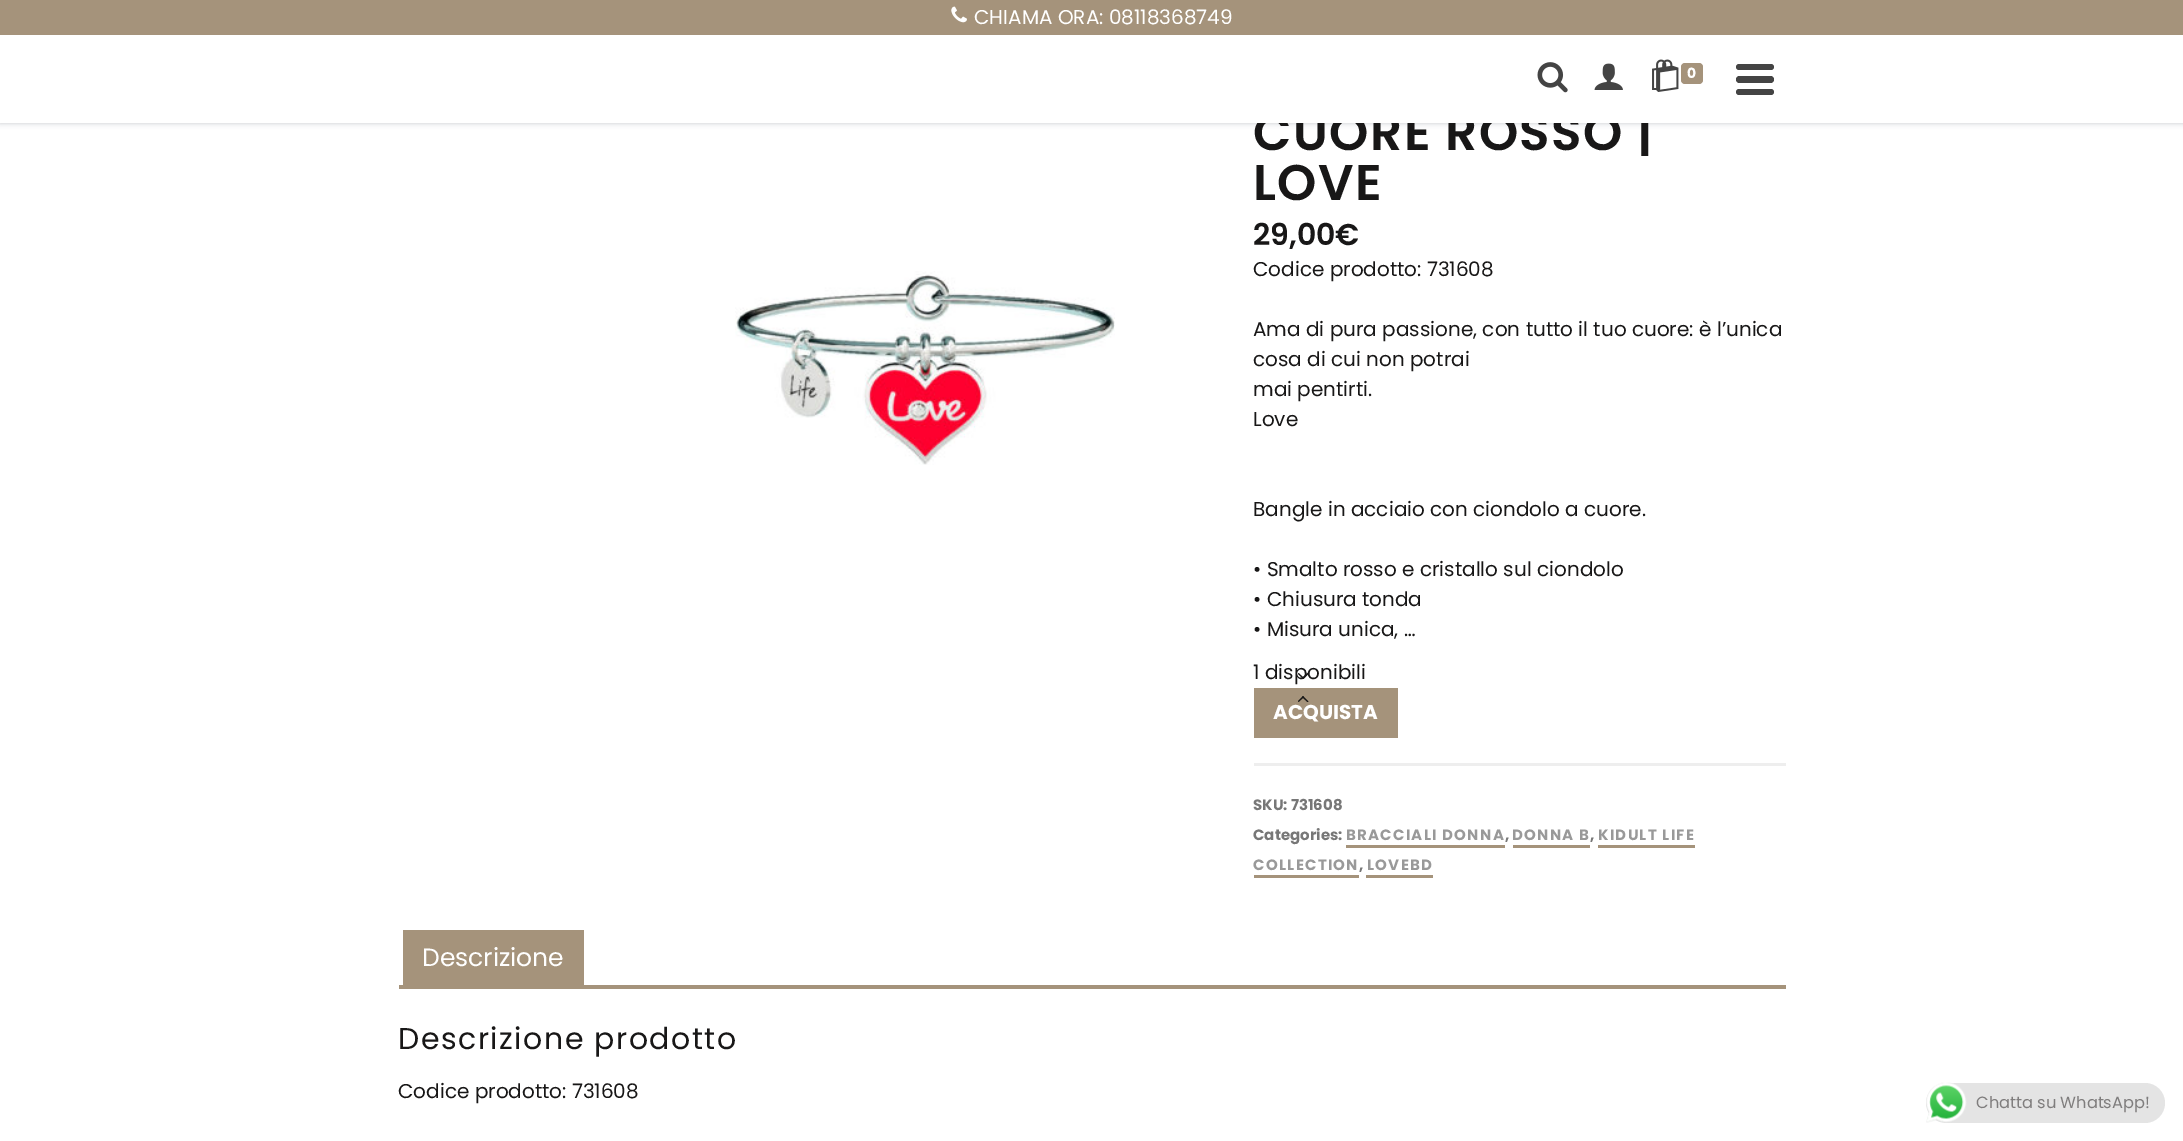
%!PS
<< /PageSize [2183 1141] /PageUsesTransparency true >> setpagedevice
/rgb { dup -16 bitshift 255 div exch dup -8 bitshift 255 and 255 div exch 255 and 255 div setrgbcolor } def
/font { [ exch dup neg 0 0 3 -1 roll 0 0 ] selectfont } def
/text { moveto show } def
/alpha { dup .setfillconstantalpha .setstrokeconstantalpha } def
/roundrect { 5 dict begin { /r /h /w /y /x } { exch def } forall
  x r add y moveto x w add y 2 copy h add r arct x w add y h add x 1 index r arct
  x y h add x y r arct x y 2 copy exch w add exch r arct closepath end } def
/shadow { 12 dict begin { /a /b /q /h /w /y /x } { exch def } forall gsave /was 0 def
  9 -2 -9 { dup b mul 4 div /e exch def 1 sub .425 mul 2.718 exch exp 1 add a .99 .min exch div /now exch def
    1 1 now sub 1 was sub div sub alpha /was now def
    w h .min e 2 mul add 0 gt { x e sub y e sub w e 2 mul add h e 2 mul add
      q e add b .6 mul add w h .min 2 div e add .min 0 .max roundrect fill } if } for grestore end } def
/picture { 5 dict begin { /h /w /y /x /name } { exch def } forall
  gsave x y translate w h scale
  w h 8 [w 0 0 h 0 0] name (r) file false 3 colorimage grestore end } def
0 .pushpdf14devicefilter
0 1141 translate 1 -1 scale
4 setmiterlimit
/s1 { /Poppins-Regular 20 font 16#FFFFFF rgb } def
/s2 { /Poppins-Bold 14 font 16#FFFFFF rgb } def
/s3 { /Poppins-SemiBold 30 font 16#181717 rgb } def
/s4 { /Poppins-Regular 20 font 16#181717 rgb } def
/s5 { /Poppins-Bold 20 font 16#FFFFFF rgb } def
/s6 { /Poppins-Bold 15 font 16#777777 rgb } def
/s7 { /Poppins-Regular 25 font 16#FFFFFF rgb } def
/s8 { /Poppins-Regular 16.25 font 16#7F7D7D rgb } def
16#FFFFFF rgb
0 0 2183 1141 rectfill
16#393F48 rgb
0 0 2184 123 0 3 0.3 shadow
/Poppins-SemiBold 50 font
16#181717 rgb
1253 150 moveto 1.5 0 (CUORE ROSSO |) ashow
16#FFFFFF rgb
0 35 2183 88 rectfill
16#A5937B rgb
0 0 2183 35 rectfill
(pic1.raw) 951 6 16 17 picture
s1
(CHIAMA ORA: 08118368749) 974 24 text
(pic2.raw) 1537 62 31 31 picture
(pic3.raw) 1594 63 29 27 picture
(pic4.raw) 1652 59 27 33 picture
16#A5937B rgb
1681 63 22 21 4 roundrect fill
s2
(0) 1687 78 text
16#444444 rgb
1736 64 38 6 3 roundrect fill
1736 76 38 7 3.5 roundrect fill
1736 89 38 6 3 roundrect fill
(pic5.raw) 735 271 380 194 picture
/Poppins-SemiBold 50 font
16#181717 rgb
1253 200 moveto 1.5 0 (LOVE) ashow
s3
(29,00€) 1253 245 text
s4
(Codice prodotto: 731608) 1253 276 text
(Ama di pura passione, con tutto il tuo cuore: è l’unica) 1253 336 text
(cosa di cui non potrai) 1253 366 text
(mai pentirti.) 1253 396 text
(Love) 1253 426 text
(Bangle in acciaio con ciondolo a cuore.) 1253 516 text
(• Smalto rosso e cristallo sul ciondolo) 1253 576 text
(• Chiusura tonda) 1253 606 text
(• Misura unica, …) 1253 636 text
(1 disponibili) 1253 679 text
1308.5 674 moveto 1303 679 lineto 1302 678 lineto 1307.5 673 lineto closepath fill
16#A5937B rgb
1254 688 144 50 rectfill
16#181717 rgb
1304 678 moveto 1303 679 lineto 1298 674 lineto 1298.5 673 lineto closepath 1298 701 moveto 1303 696 lineto 1304 697 lineto 1298.5 702 lineto closepath fill
1302 697 moveto 1303 696 lineto 1308.5 701.5 lineto 1307.5 702 lineto closepath fill
s5
(ACQUISTA) 1273 719 text
16#EEEEEE rgb
1254 763 532 3 rectfill
s6
(SKU: 731608) 1253 810 text
(Categories:) 1253 840 text
16#999999 rgb
1346 840 moveto 1.25 0 (BRACCIALI DONNA) ashow
16#A5937B rgb
1346 845 159 3 rectfill
s6
(,) 1505 840 text
16#999999 rgb
1512 840 moveto 1.25 0 (DONNA B) ashow
16#A5937B rgb
1513 845 77 3 rectfill
s6
(,) 1590 840 text
16#999999 rgb
1598 840 moveto 1.25 0 (KIDULT LIFE) ashow
16#A5937B rgb
1598 845 97 3 rectfill
16#999999 rgb
1253 870 moveto 1.25 0 (COLLECTION) ashow
16#A5937B rgb
1254 875 105 3 rectfill
s6
(,) 1359 870 text
16#999999 rgb
1367 870 moveto 1.25 0 (LOVEBD) ashow
16#A5937B rgb
1366 875 67 3 rectfill
403 930 181 55 rectfill
s7
(Descrizione) 422 966 text
16#A5937B rgb
399 985 1387 4 rectfill
/Poppins-Regular 30 font
16#181717 rgb
398 1049 moveto 1.5 0 (Descrizione prodotto) ashow
s4
(Codice prodotto: 731608) 398 1098 text
16#E4E4E4 rgb
1926 1083 239 40 20 roundrect fill
(pic6.raw) 1926 1082 41 41 picture
s8
(Chatta su WhatsApp!) 1976 1108 text
.poppdf14devicefilter showpage
